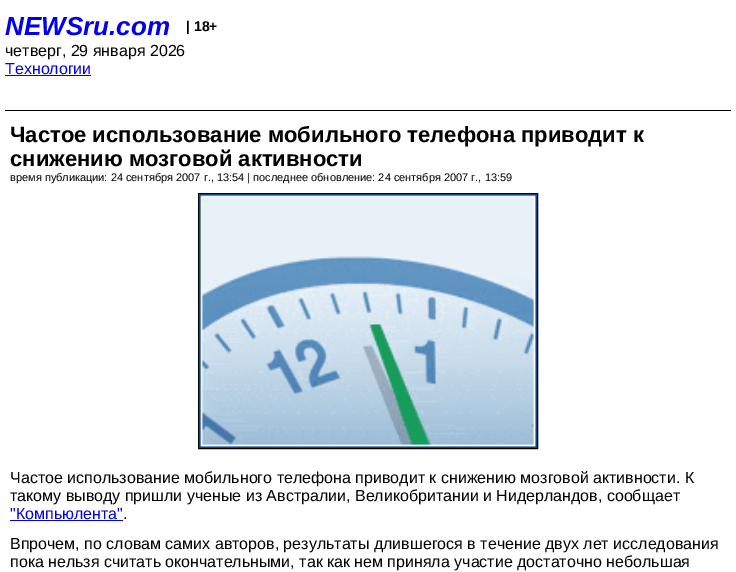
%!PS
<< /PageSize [736 572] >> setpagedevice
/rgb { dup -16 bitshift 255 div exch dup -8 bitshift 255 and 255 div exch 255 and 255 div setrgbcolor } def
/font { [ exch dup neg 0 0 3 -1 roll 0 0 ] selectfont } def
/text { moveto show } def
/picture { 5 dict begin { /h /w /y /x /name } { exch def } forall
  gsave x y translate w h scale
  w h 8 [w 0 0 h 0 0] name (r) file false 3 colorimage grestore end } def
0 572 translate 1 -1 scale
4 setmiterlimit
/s1 { /LiberationSans-BoldItalic 26 font 16#0000EE rgb } def
/s2 { /LiberationSans-Bold 14 font 16#000000 rgb } def
/s3 { /LiberationSans-Regular 16 font 16#000000 rgb } def
/s4 { /LiberationSans-Regular 16 font 16#0000EE rgb } def
/s5 { /LiberationSans-Bold 22 font 16#000000 rgb } def
/s6 { /LiberationSans-Regular 11 font 16#000000 rgb } def
16#FFFFFF rgb
0 0 736 572 rectfill
16#000000 rgb
5 110 726 1 rectfill
s1
(NEWSru.com) 5 35 text
s2
(| 18+) 186 31 text
s3
(четверг, 29 января 2026) 5 56 text
s4
(Технологии) 5 74 text
5 75 86 1 rectfill
s5
(Частое использование мобильного телефона приводит к) 10 142 text
(снижению мозговой активности) 10 166 text
s6
(время публикации: 24 сентября 2007 г., 13:54 | последнее обновление: 24 сентября 2007 г., 13:59) 10 181 text
198.5 193.5 339 255 rectstroke
(pic1.raw) 199 194 338 254 picture
s3
(Частое использование мобильного телефона приводит к снижению мозговой активности. К) 10 483 text
(такому выводу пришли ученые из Австралии, Великобритании и Нидерландов, сообщает) 10 501 text
s4
("Компьюлента") 10 519 text
10 520 113 1 rectfill
s3
(.) 123 519 text
(Впрочем, по словам самих авторов, результаты длившегося в течение двух лет исследования) 10 549 text
(пока нельзя считать окончательными, так как нем приняла участие достаточно небольшая) 10 567 text
showpage
